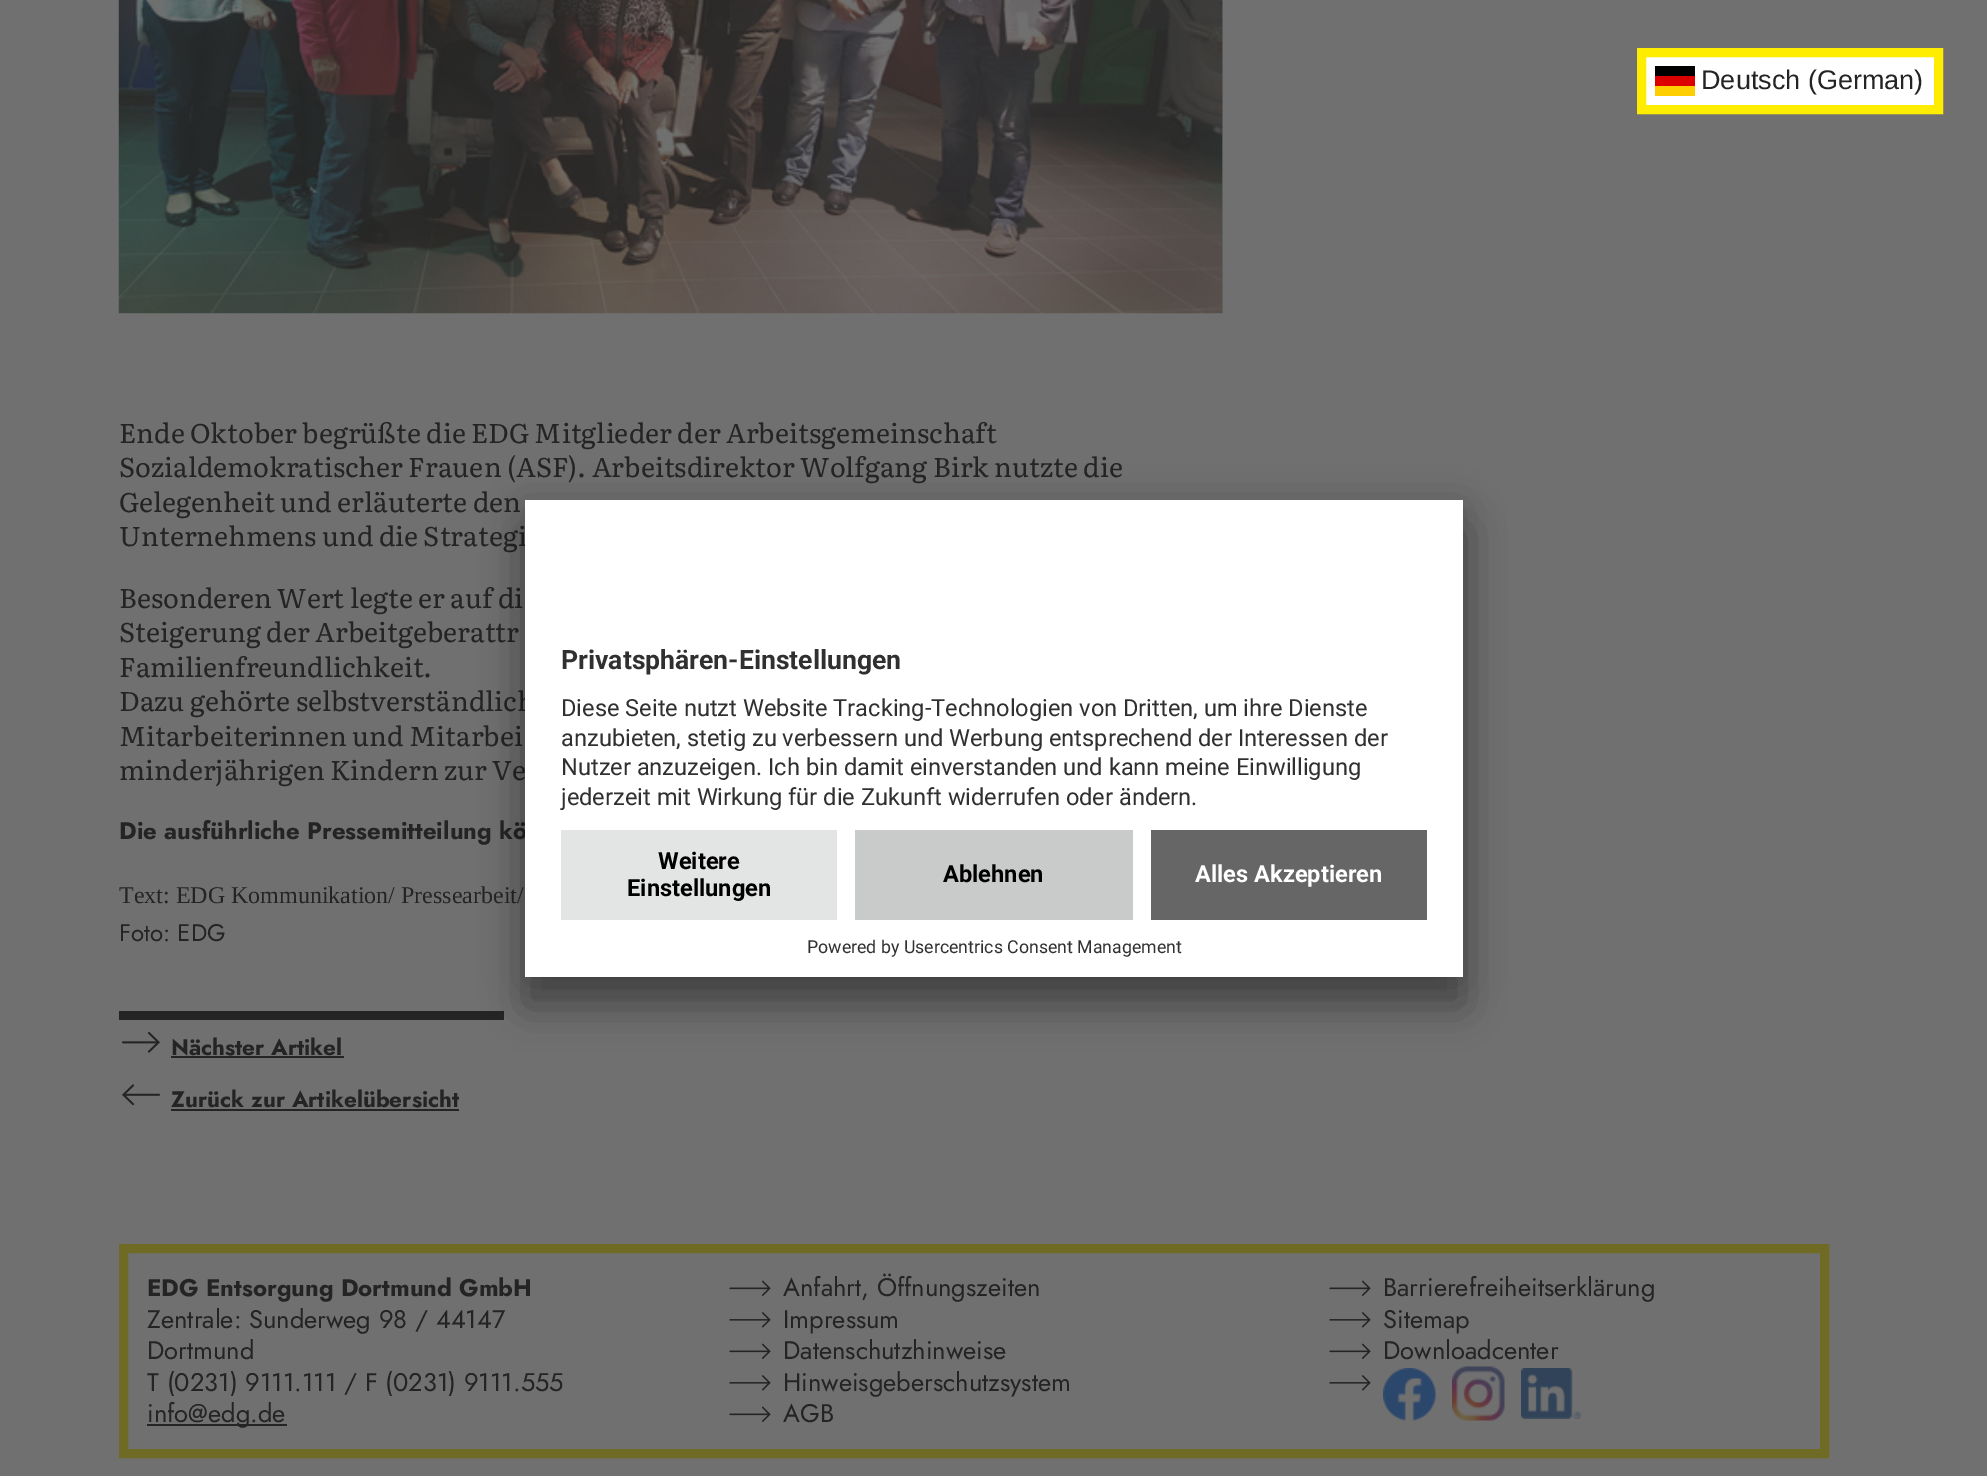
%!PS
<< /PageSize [1987 1476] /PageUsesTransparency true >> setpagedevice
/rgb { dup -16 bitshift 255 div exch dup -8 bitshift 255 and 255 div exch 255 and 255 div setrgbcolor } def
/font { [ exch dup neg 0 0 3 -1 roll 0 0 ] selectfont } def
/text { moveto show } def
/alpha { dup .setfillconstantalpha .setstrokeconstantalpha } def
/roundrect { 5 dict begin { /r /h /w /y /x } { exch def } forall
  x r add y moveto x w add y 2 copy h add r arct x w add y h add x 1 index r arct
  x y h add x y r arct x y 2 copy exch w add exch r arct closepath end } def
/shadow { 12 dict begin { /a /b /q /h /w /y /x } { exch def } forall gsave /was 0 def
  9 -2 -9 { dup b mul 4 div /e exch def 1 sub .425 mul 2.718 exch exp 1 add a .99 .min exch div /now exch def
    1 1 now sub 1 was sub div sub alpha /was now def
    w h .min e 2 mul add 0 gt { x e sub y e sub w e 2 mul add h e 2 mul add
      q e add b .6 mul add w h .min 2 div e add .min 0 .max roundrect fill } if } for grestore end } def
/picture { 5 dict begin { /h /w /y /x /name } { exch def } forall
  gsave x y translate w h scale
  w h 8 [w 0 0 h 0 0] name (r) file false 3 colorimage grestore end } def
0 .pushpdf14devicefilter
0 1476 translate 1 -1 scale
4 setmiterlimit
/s1 { /LiberationSans-Regular 27 font 16#242424 rgb } def
/s2 { /Literata-Regular 27 font 16#242424 rgb } def
/s3 { /Jost-Bold 24 font 16#242424 rgb } def
/s4 { /LiberationSerif-Regular 24 font 16#242424 rgb } def
/s5 { /Jost-Regular 24 font 16#242424 rgb } def
/s6 { /Jost-Bold 22.5 font 16#242424 rgb } def
/s7 { /Jost-Regular 25.5 font 16#242424 rgb } def
/s8 { /Roboto-Bold 26.6 font 16#303030 rgb } def
/s9 { /Roboto-Regular 23.6 font 16#303030 rgb } def
/s10 { /Roboto-Bold 23.6 font 16#000000 rgb } def
/s11 { /Roboto-Bold 23.6 font 16#FFFFFF rgb } def
/s12 { /Roboto-Regular 17.75 font 16#303030 rgb } def
16#707070 rgb
0 0 1987 1476 rectfill
16#FFFFFF rgb
1641.5 52.5 moveto 1938.5 52.5 lineto 1938.5 109.5 lineto 1641.5 109.5 lineto closepath gsave fill grestore
16#FFED00 rgb
9 setlinewidth
stroke
16#FFCE00 rgb
1655 86 40 10 rectfill
16#000000 rgb
1655 66 40 10 rectfill
16#DD0000 rgb
1655 76 40 10 rectfill
s1
(Deutsch \(German\)) 1701 89 text
(pic1.raw) 118 0 1105 314 picture
(pic2.raw) 1222 0 1 314 picture
s2
(Ende Oktober begrüßte die EDG Mitglieder der Arbeitsgemeinschaft) 119 443 text
(Sozialdemokratischer Frauen \(ASF\). Arbeitsdirektor Wolfgang Birk nutzte die) 119 477 text
(Gelegenheit und erläuterte den) 119 512 text
(Unternehmens und die Strategi) 119 546 text
(Besonderen Wert legte er auf di) 119 608 text
(Steigerung der Arbeitgeberattr) 119 642 text
(Familienfreundlichkeit.) 119 677 text
(Dazu gehörte selbstverständlich) 119 711 text
(Mitarbeiterinnen und Mitarbei) 119 746 text
(minderjährigen Kindern zur Ve) 119 780 text
s3
(Die ausführliche Pressemitteilung kö) 119 839 text
s4
(Text: EDG Kommunikation/ Pressearbeit/) 119 903 text
s5
(Foto: EDG) 119 941 text
119 1011 385 9 rectfill
(pic3.raw) 121 1031 39 22 picture
s6
(Nächster Artikel) 171 1055 text
171 1056 173 2 rectfill
(pic4.raw) 122 1084 38 22 picture
(Zurück zur Artikelübersicht) 171 1107 text
171 1109 288 2 rectfill
16#706B24 rgb
123.5 1248.5 1701 205 rectstroke
s3
(EDG Entsorgung Dortmund GmbH) 147 1296 text
s7
(Zentrale: Sunderweg 98 / 44147) 147 1328 text
(Dortmund) 147 1359 text
(T \(0231\) 9111.111 / F \(0231\) 9111.555) 147 1391 text
147 1424 140 2 rectfill
(info@edg.de) 147 1422 text
(pic5.raw) 729 1280 42 16 picture
(Anfahrt, Öffnungszeiten) 783 1296 text
(pic6.raw) 729 1312 42 16 picture
(Impressum) 783 1328 text
(pic5.raw) 729 1343 42 16 picture
(Datenschutzhinweise) 783 1359 text
(pic6.raw) 729 1375 42 16 picture
(Hinweisgeberschutzsystem) 783 1391 text
(pic5.raw) 729 1406 42 16 picture
(AGB) 783 1422 text
(pic5.raw) 1329 1280 42 16 picture
(Barrierefreiheitserklärung) 1383 1296 text
(pic6.raw) 1329 1312 42 16 picture
(Sitemap) 1383 1328 text
(pic5.raw) 1329 1343 42 16 picture
(Downloadcenter) 1383 1359 text
(pic6.raw) 1329 1375 42 16 picture
(pic7.raw) 1383 1368 53 53 picture
(pic8.raw) 1452 1366 53 55 picture
(pic9.raw) 1521 1368 60 51 picture
16#000000 rgb
525 530 938 477 0 21 0.3 shadow
525 507 938 477 0 19.5 0.22 shadow
16#FFFFFF rgb
525 500 938 477 rectfill
s8
(Privatsphären-Einstellungen) 561 669 text
s9
(Diese Seite nutzt Website Tracking-Technologien von Dritten, um ihre Dienste) 561 716 text
(anzubieten, stetig zu verbessern und Werbung entsprechend der Interessen der) 561 746 text
(Nutzer anzuzeigen. Ich bin damit einverstanden und kann meine Einwilligung) 561 775 text
(jederzeit mit Wirkung für die Zukunft widerrufen oder ändern.) 561 805 text
16#E3E4E4 rgb
561 830 276 90 rectfill
s10
(Weitere) 658 869 text
(Einstellungen) 627 896 text
16#C9CBCB rgb
855 830 278 90 rectfill
s10
(Ablehnen) 943 882 text
16#666666 rgb
1151 830 276 90 rectfill
s11
(Alles Akzeptieren) 1195 882 text
s12
(Powered by Usercentrics Consent Management) 807 953 text
.poppdf14devicefilter showpage
